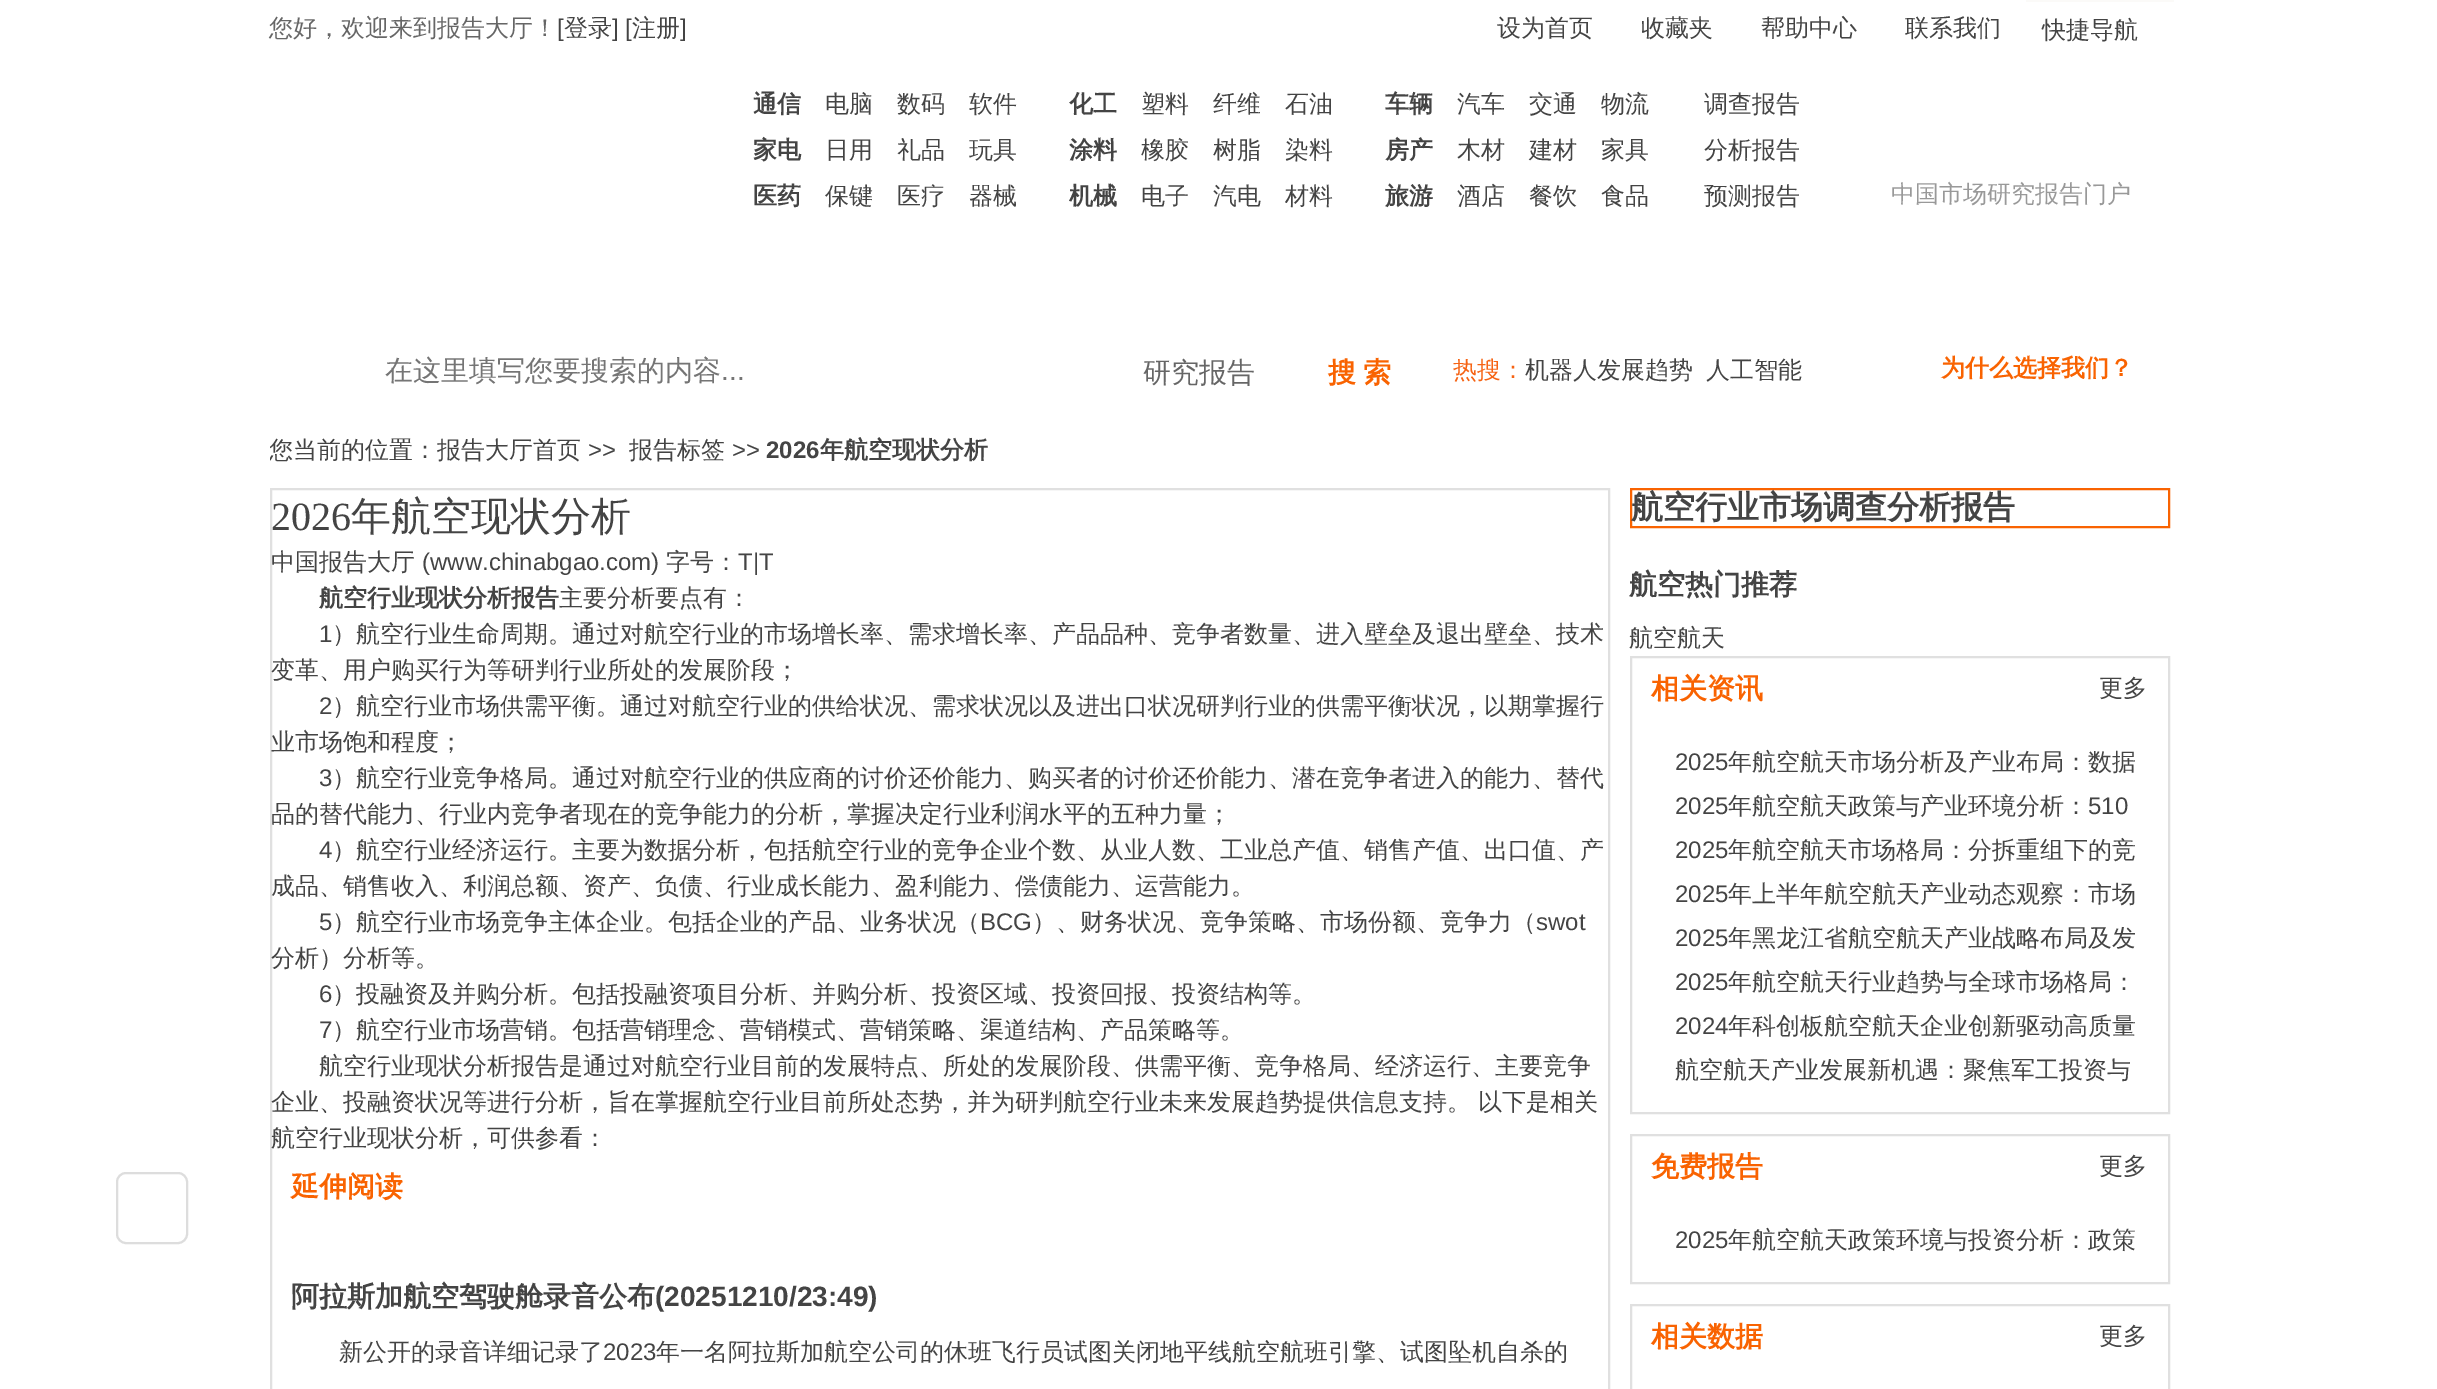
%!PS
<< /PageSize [2437 1389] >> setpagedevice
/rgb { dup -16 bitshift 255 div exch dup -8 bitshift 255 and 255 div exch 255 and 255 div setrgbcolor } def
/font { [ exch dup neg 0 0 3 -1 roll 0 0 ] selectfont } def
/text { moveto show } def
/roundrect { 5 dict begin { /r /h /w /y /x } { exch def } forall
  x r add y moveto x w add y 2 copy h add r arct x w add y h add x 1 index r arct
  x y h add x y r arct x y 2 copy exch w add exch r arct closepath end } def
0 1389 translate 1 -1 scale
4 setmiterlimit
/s1 { /WenQuanYiZenHei-Medium 24 font 16#666666 rgb } def
/s2 { /LiberationSans-Regular 24 font 16#444444 rgb } def
/s3 { /WenQuanYiZenHei-Medium 24 font 16#444444 rgb } def
/s4 { /WenQuanYiZenHei-Bold 24 font 16#444444 rgb } def
/s5 { /WenQuanYiZenHei-Medium 24 font 16#999999 rgb } def
/s6 { /WenQuanYiZenHei-Medium 28 font 16#757575 rgb } def
/s7 { /LiberationSans-Regular 28 font 16#757575 rgb } def
/s8 { /WenQuanYiZenHei-Medium 28 font 16#666666 rgb } def
/s9 { /WenQuanYiZenHei-Medium 24 font 16#F66313 rgb } def
/s10 { /WenQuanYiZenHei-Bold 24 font 16#F96301 rgb } def
/s11 { /LiberationSans-Bold 24 font 16#444444 rgb } def
/s12 { /LiberationSerif-Regular 40 font 16#444444 rgb } def
/s13 { /WenQuanYiZenHei-Medium 40 font 16#444444 rgb } def
/s14 { /WenQuanYiZenHei-Bold 28 font 16#F96301 rgb } def
/s15 { /WenQuanYiZenHei-Bold 28 font 16#444444 rgb } def
/s16 { /LiberationSans-Bold 28 font 16#444444 rgb } def
/s17 { /WenQuanYiZenHei-Bold 32 font 16#444444 rgb } def
16#FFFFFF rgb
0 0 2437 1389 rectfill
s1
(您好，欢迎来到报告大厅！) 269 36 text
s2
([) 557 36 text
s3
(登录) 564 36 text
s2
(] [) 612 36 text
s3
(注册) 632 36 text
s2
(]) 680 36 text
s3
(设为首页) 1497 36 text
(收藏夹) 1641 36 text
(帮助中心) 1761 36 text
(联系我们) 1905 36 text
16#FBFAF8 rgb
2026 0 148 2 rectfill
s3
(快捷导航) 2042 38 text
s4
(通信) 753 112 text
s3
(电脑) 825 112 text
(数码) 897 112 text
(软件) 969 112 text
s4
(家电) 753 158 text
s3
(日用) 825 158 text
(礼品) 897 158 text
(玩具) 969 158 text
s4
(医药) 753 204 text
s3
(保键) 825 204 text
(医疗) 897 204 text
(器械) 969 204 text
s4
(化工) 1069 112 text
s3
(塑料) 1141 112 text
(纤维) 1213 112 text
(石油) 1285 112 text
s4
(涂料) 1069 158 text
s3
(橡胶) 1141 158 text
(树脂) 1213 158 text
(染料) 1285 158 text
s4
(机械) 1069 204 text
s3
(电子) 1141 204 text
(汽电) 1213 204 text
(材料) 1285 204 text
s4
(车辆) 1385 112 text
s3
(汽车) 1457 112 text
(交通) 1529 112 text
(物流) 1601 112 text
s4
(房产) 1385 158 text
s3
(木材) 1457 158 text
(建材) 1529 158 text
(家具) 1601 158 text
s4
(旅游) 1385 204 text
s3
(酒店) 1457 204 text
(餐饮) 1529 204 text
(食品) 1601 204 text
(调查报告) 1704 112 text
(分析报告) 1704 158 text
(预测报告) 1704 204 text
s5
(中国市场研究报告门户) 1891 202 text
s6
(在这里填写您要搜索的内容) 385 380 text
s7
(...) 721 380 text
s8
(研究报告) 1143 382 text
/WenQuanYiZenHei-Bold 28 font
16#F96301 rgb
1328 382 moveto -1 0 32 (搜 索) widthshow
s9
(热搜：) 1453 378 text
s3
(机器人发展趋势) 1525 378 text
(人工智能) 1706 378 text
s10
(为什么选择我们？) 1941 376 text
gsave
270 428 1900 44 rectclip
s3
(您当前的位置：) 269 458 text
grestore
s3
(报告大厅首页) 437 458 text
s2
(>>) 588 458 text
s3
(报告标签) 629 458 text
s2
(>>) 732 458 text
s11
(2026) 766 458 text
s4
(年航空现状分析) 820 458 text
16#DDDDDD rgb
2 setlinewidth
117 1173 70 70 9 roundrect stroke
16#E0E0E0 rgb
271 489 1338 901 rectstroke
s12
(2026) 271 530 text
s13
(年航空现状分析) 351 530 text
s3
(中国报告大厅) 271 570 text
s2
(\(www.chinabgao.com\)) 422 570 text
s3
(字号：) 666 570 text
s2
(T|T) 738 570 text
s4
(航空行业现状分析报告) 319 606 text
s3
(主要分析要点有：) 559 606 text
s2
(1) 319 642 text
s3
(）航空行业生命周期。通过对航空行业的市场增长率、需求增长率、产品品种、竞争者数量、进入壁垒及退出壁垒、技术) 332 642 text
(变革、用户购买行为等研判行业所处的发展阶段；) 271 678 text
s2
(2) 319 714 text
s3
(）航空行业市场供需平衡。通过对航空行业的供给状况、需求状况以及进出口状况研判行业的供需平衡状况，以期掌握行) 332 714 text
(业市场饱和程度；) 271 750 text
s2
(3) 319 786 text
s3
(）航空行业竞争格局。通过对航空行业的供应商的讨价还价能力、购买者的讨价还价能力、潜在竞争者进入的能力、替代) 332 786 text
(品的替代能力、行业内竞争者现在的竞争能力的分析，掌握决定行业利润水平的五种力量；) 271 822 text
s2
(4) 319 858 text
s3
(）航空行业经济运行。主要为数据分析，包括航空行业的竞争企业个数、从业人数、工业总产值、销售产值、出口值、产) 332 858 text
(成品、销售收入、利润总额、资产、负债、行业成长能力、盈利能力、偿债能力、运营能力。) 271 894 text
s2
(5) 319 930 text
s3
(）航空行业市场竞争主体企业。包括企业的产品、业务状况（) 332 930 text
s2
(BCG) 980 930 text
s3
(）、财务状况、竞争策略、市场份额、竞争力（) 1032 930 text
s2
(swot) 1536 930 text
s3
(分析）分析等。) 271 966 text
s2
(6) 319 1002 text
s3
(）投融资及并购分析。包括投融资项目分析、并购分析、投资区域、投资回报、投资结构等。) 332 1002 text
s2
(7) 319 1038 text
s3
(）航空行业市场营销。包括营销理念、营销模式、营销策略、渠道结构、产品策略等。) 332 1038 text
(航空行业现状分析报告是通过对航空行业目前的发展特点、所处的发展阶段、供需平衡、竞争格局、经济运行、主要竞争) 319 1074 text
(企业、投融资状况等进行分析，旨在掌握航空行业目前所处态势，并为研判航空行业未来发展趋势提供信息支持。) 271 1110 text
(以下是相关) 1478 1110 text
(航空行业现状分析，可供参看：) 271 1146 text
s14
(延伸阅读) 291 1196 text
s15
(阿拉斯加航空驾驶舱录音公布) 291 1306 text
s16
(\(20251210/23:49\)) 655 1306 text
s3
(新公开的录音详细记录了) 339 1360 text
s2
(2023) 603 1360 text
s3
(年一名阿拉斯加航空公司的休班飞行员试图关闭地平线航空航班引擎、试图坠机自杀的) 656 1360 text
16#F96301 rgb
1631 489 538 38 rectstroke
s17
(航空行业市场调查分析报告) 1631 518 text
s15
(航空热门推荐) 1629 594 text
s3
(航空航天) 1629 646 text
16#E0E0E0 rgb
1631 657 538 456 rectstroke
s14
(相关资讯) 1651 698 text
s3
(更多) 2099 696 text
s2
(2025) 1675 770 text
s3
(年航空航天市场分析及产业布局：数据) 1728 770 text
s2
(2025) 1675 814 text
s3
(年航空航天政策与产业环境分析：) 1728 814 text
s2
(510) 2088 814 text
(2025) 1675 858 text
s3
(年航空航天市场格局：分拆重组下的竞) 1728 858 text
s2
(2025) 1675 902 text
s3
(年上半年航空航天产业动态观察：市场) 1728 902 text
s2
(2025) 1675 946 text
s3
(年黑龙江省航空航天产业战略布局及发) 1728 946 text
s2
(2025) 1675 990 text
s3
(年航空航天行业趋势与全球市场格局：) 1728 990 text
s2
(2024) 1675 1034 text
s3
(年科创板航空航天企业创新驱动高质量) 1728 1034 text
(航空航天产业发展新机遇：聚焦军工投资与) 1675 1078 text
16#E0E0E0 rgb
1631 1135 538 148 rectstroke
s14
(免费报告) 1651 1176 text
s3
(更多) 2099 1174 text
s2
(2025) 1675 1248 text
s3
(年航空航天政策环境与投资分析：政策) 1728 1248 text
16#E0E0E0 rgb
1631 1305 538 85 rectstroke
s14
(相关数据) 1651 1346 text
s3
(更多) 2099 1344 text
showpage
